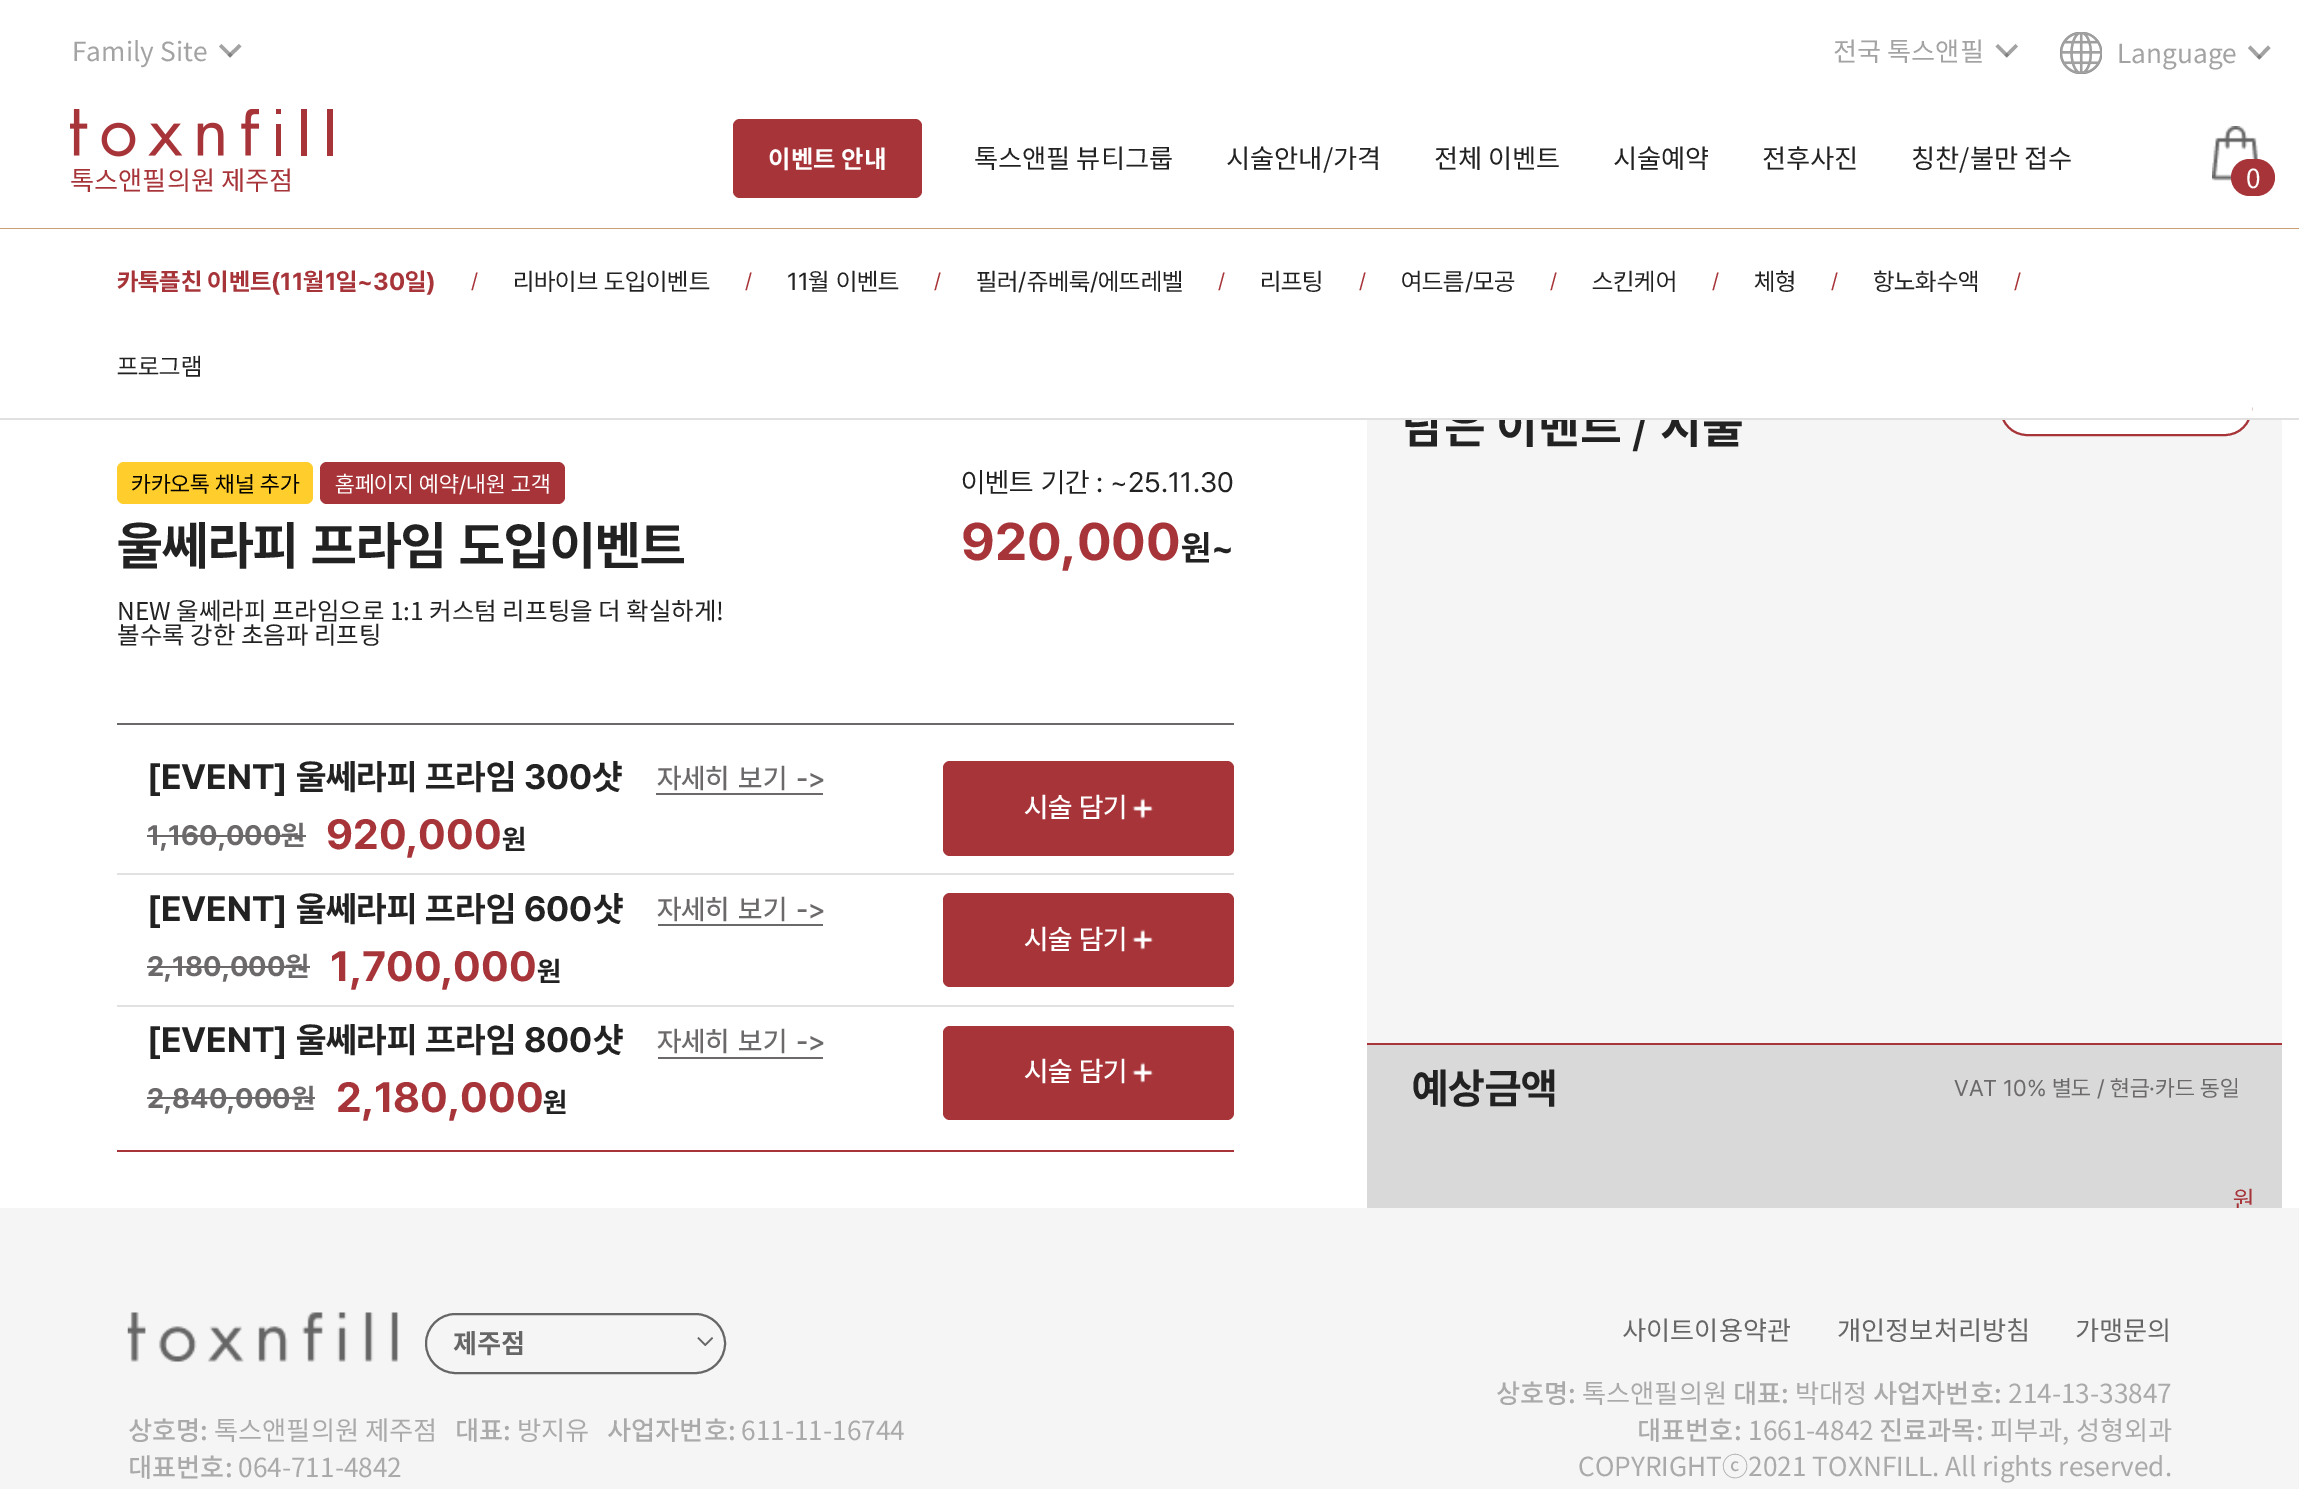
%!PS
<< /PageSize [2299 1489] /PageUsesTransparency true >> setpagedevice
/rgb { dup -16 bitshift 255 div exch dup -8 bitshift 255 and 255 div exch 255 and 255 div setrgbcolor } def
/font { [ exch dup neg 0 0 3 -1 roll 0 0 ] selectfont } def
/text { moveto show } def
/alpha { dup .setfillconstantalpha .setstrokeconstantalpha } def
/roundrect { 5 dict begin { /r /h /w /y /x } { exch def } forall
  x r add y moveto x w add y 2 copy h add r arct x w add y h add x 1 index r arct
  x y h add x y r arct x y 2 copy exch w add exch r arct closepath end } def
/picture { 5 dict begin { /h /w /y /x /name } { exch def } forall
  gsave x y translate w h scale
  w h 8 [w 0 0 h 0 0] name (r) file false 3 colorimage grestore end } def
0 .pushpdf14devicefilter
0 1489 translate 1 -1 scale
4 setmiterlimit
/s1 { /NotoSansKR-Regular 26.25 font 16#A3A3A3 rgb } def
/s2 { /NotoSansKR-Bold 24.5 font 16#FFFFFF rgb } def
/s3 { /NotoSansKR-Regular 26.25 font 16#222222 rgb } def
/s4 { /NotoSansKR-Regular 26.25 font 16#A73439 rgb } def
/s5 { /NotoSansKR-Regular 26.25 font 16#FFFFFF rgb } def
/s6 { /NotoSansKR-Bold 45.5 font 16#222222 rgb } def
/s7 { /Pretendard-Bold 24.5 font 16#A73439 rgb } def
/s8 { /Pretendard-Regular 21 font 16#A73439 rgb } def
/s9 { /Pretendard-Regular 24.5 font 16#222222 rgb } def
/s10 { /Pretendard-Regular 22.75 font 16#000000 rgb } def
/s11 { /Pretendard-Regular 22.75 font 16#FFFFFF rgb } def
/s12 { /Pretendard-Regular 28 font 16#222222 rgb } def
/s13 { /Pretendard-Bold 52.5 font 16#222222 rgb } def
/s14 { /Pretendard-Bold 52.5 font 16#A73439 rgb } def
/s15 { /Pretendard-Bold 35 font 16#222222 rgb } def
/s16 { /NotoSansKR-Regular 24.5 font 16#222222 rgb } def
/s17 { /Pretendard-Bold 28 font 16#6C696A rgb } def
/s18 { /Pretendard-Bold 42 font 16#A73439 rgb } def
/s19 { /Pretendard-Bold 28 font 16#222222 rgb } def
/s20 { /Pretendard-Medium 28 font 16#FFFFFF rgb } def
/s21 { /Pretendard-Bold 42 font 16#222222 rgb } def
/s22 { /Pretendard-Regular 22.75 font 16#6C696A rgb } def
/s23 { /Pretendard-Regular 24.5 font 16#A73439 rgb } def
/s24 { /NotoSansKR-Bold 26.25 font 16#666666 rgb } def
/s25 { /NotoSansKR-Medium 26.25 font 16#AAAAAA rgb } def
/s26 { /NotoSansKR-Regular 26.25 font 16#AAAAAA rgb } def
/s27 { /NotoSansKR-Regular 26.25 font 16#666666 rgb } def
16#FFFFFF rgb
0 0 2299 1489 rectfill
16#CB9F76 rgb
0 228 2299 1 rectfill
s1
(Family Site) 72 61 text
221.5 44 moveto 232.5 55 lineto 230 57.5 lineto 219 46.5 lineto closepath fill
0.6 alpha
16#666666 rgb
241.5 46.5 moveto 230 57.5 lineto 227.5 55 lineto 239 44 lineto closepath fill
1 alpha
s1
(전국 톡스앤필) 1833 61 text
1998 44 moveto 2009 55 lineto 2006.5 57.5 lineto 1995.5 46.5 lineto closepath fill
0.6 alpha
16#666666 rgb
2018 46.5 moveto 2007 57.5 lineto 2004.5 55 lineto 2015.5 44 lineto closepath fill
1 alpha
(pic1.raw) 2060 32 42 42 picture
s1
(Language) 2117 63 text
2250.5 45.5 moveto 2261.5 57 lineto 2259 59.5 lineto 2248 48 lineto closepath fill
0.6 alpha
16#666666 rgb
2270.5 48 moveto 2259.5 59.5 lineto 2257 57 lineto 2268 45.5 lineto closepath fill
1 alpha
16#A73439 rgb
733 119 189 79 7 roundrect fill
s2
(이벤트 안내) 768 168 text
s3
(톡스앤필 뷰티그룹) 974 168 text
(시술안내/가격) 1226 168 text
(전체 이벤트) 1434 168 text
(시술예약) 1613 168 text
(전후사진) 1762 168 text
(칭찬/불만 접수) 1911 168 text
(pic2.raw) 70 109 263 48 picture
s4
(톡스앤필의원 제주점) 70 190 text
(pic3.raw) 2212 126 46 55 picture
2231 159 44 37 18.5 roundrect fill
s5
(0) 2246 188 text
16#F5F5F5 rgb
1367 420 915 623 rectfill
s6
(담은 이벤트 / 시술) 1402 443 text
16#FFFFFF rgb
2001 383 250 52 26 roundrect gsave fill grestore
16#A73439 rgb
2 setlinewidth
stroke
16#FFFFFF rgb
1405 382 847 36 rectfill
16#E0E0E0 rgb
0 418 2299 2 rectfill
s7
(카톡플친 이벤트\(11월1일~30일\)) 117 290 text
s8
(/) 471 288 text
s9
(리바이브 도입이벤트) 513 290 text
s8
(/) 745 288 text
s9
(11월 이벤트) 787 290 text
s8
(/) 934 288 text
s9
(필러/쥬베룩/에뜨레벨) 976 290 text
s8
(/) 1218 288 text
s9
(리프팅) 1260 290 text
s8
(/) 1359 288 text
s9
(여드름/모공) 1401 290 text
s8
(/) 1550 288 text
s9
(스킨케어) 1592 290 text
s8
(/) 1712 288 text
s9
(체형) 1754 290 text
s8
(/) 1831 288 text
s9
(항노화수액) 1873 290 text
s8
(/) 2014 288 text
s9
(프로그램) 117 375 text
16#FFCE2D rgb
117 462 196 42 7 roundrect fill
s10
(카카오톡 채널 추가) 131 492 text
16#A73439 rgb
320 462 245 42 7 roundrect fill
s11
(홈페이지 예약/내원 고객) 335 492 text
s12
(이벤트 기간 : ~25.11.30) 961 492 text
s13
(울쎄라피 프라임 도입이벤트) 117 564 text
s14
(920,000) 961 560 text
s15
(원~) 1181 560 text
s16
(NEW 울쎄라피 프라임으로 1:1 커스텀 리프팅을 더 확실하게!) 117 620 text
(볼수록 강한 초음파 리프팅) 117 644 text
16#6C696A rgb
117 723 1117 2 rectfill
16#A73439 rgb
117 1150 1117 2 rectfill
16#E1E1E1 rgb
117 873 1117 2 rectfill
s15
([EVENT] 울쎄라피 프라임 300샷) 147 789 text
16#6C696A rgb
656 793 167 2 rectfill
/Pretendard-Medium 28 font
657 788 moveto 2 0 32 (자세히 보기 ->) widthshow
s17
(1,160,000원) 147 845 text
147 835 159 2 rectfill
s18
(920,000) 326 849 text
s19
(원) 502 849 text
16#A73439 rgb
943 761 291 95 7 roundrect fill
s20
(시술 담기) 1024 817 text
(pic4.raw) 1132 798 22 21 picture
16#E1E1E1 rgb
117 1005 1117 2 rectfill
s15
([EVENT] 울쎄라피 프라임 600샷) 147 921 text
16#6C696A rgb
658 924 165 2 rectfill
/Pretendard-Medium 28 font
657 919 moveto 2 0 32 (자세히 보기 ->) widthshow
s17
(2,180,000원) 147 976 text
147 966 163 2 rectfill
s18
(1,700,000) 330 981 text
s19
(원) 537 981 text
16#A73439 rgb
943 893 291 94 7 roundrect fill
s20
(시술 담기) 1024 949 text
(pic5.raw) 1132 929 22 22 picture
s15
([EVENT] 울쎄라피 프라임 800샷) 147 1052 text
16#6C696A rgb
658 1057 165 2 rectfill
/Pretendard-Medium 28 font
657 1051 moveto 2 0 32 (자세히 보기 ->) widthshow
s17
(2,840,000원) 147 1108 text
147 1097 168 2 rectfill
s18
(2,180,000) 336 1112 text
s19
(원) 543 1112 text
16#A73439 rgb
943 1026 291 94 7 roundrect fill
s20
(시술 담기) 1024 1081 text
(pic5.raw) 1132 1062 22 22 picture
16#D9D9D9 rgb
1367 1045 915 163 rectfill
16#A73439 rgb
1367 1043 915 2 rectfill
s21
(예상금액) 1412 1103 text
s22
(VAT 10% 별도 / 현금·카드 동일) 1954 1096 text
s23
(원) 2233 1208 text
16#F5F5F5 rgb
0 1208 2299 281 rectfill
(pic6.raw) 127 1312 272 50 picture
16#666666 rgb
426 1314 299 59 29.5 roundrect stroke
s24
(제주점) 453 1353 text
698.5 1337 moveto 706 1344.5 lineto 705 1346 lineto 697.5 1338.5 lineto closepath fill
713 1338.5 moveto 705.5 1346 lineto 704.5 1344.5 lineto 712 1337 lineto closepath fill
s25
(상호명:) 128 1440 text
s26
(톡스앤필의원 제주점) 214 1440 text
s25
(대표:) 455 1440 text
s26
(방지유) 517 1440 text
s25
(사업자번호:) 607 1440 text
s26
(611-11-16744) 741 1440 text
s25
(대표번호:) 128 1477 text
s26
(064-711-4842) 238 1477 text
s27
(사이트이용약관) 1622 1340 text
(개인정보처리방침) 1837 1340 text
(가맹문의) 2075 1340 text
s25
(상호명:) 1496 1403 text
s26
(톡스앤필의원) 1582 1403 text
s25
(대표:) 1733 1403 text
s26
(박대정) 1795 1403 text
s25
(사업자번호:) 1873 1403 text
s26
(214-13-33847) 2008 1403 text
s25
(대표번호:) 1637 1440 text
s26
(1661-4842) 1748 1440 text
s25
(진료과목:) 1879 1440 text
s26
(피부과, 성형외과) 1990 1440 text
(COPYRIGHTⓒ2021 TOXNFILL. All rights reserved.) 1578 1476 text
.poppdf14devicefilter showpage
